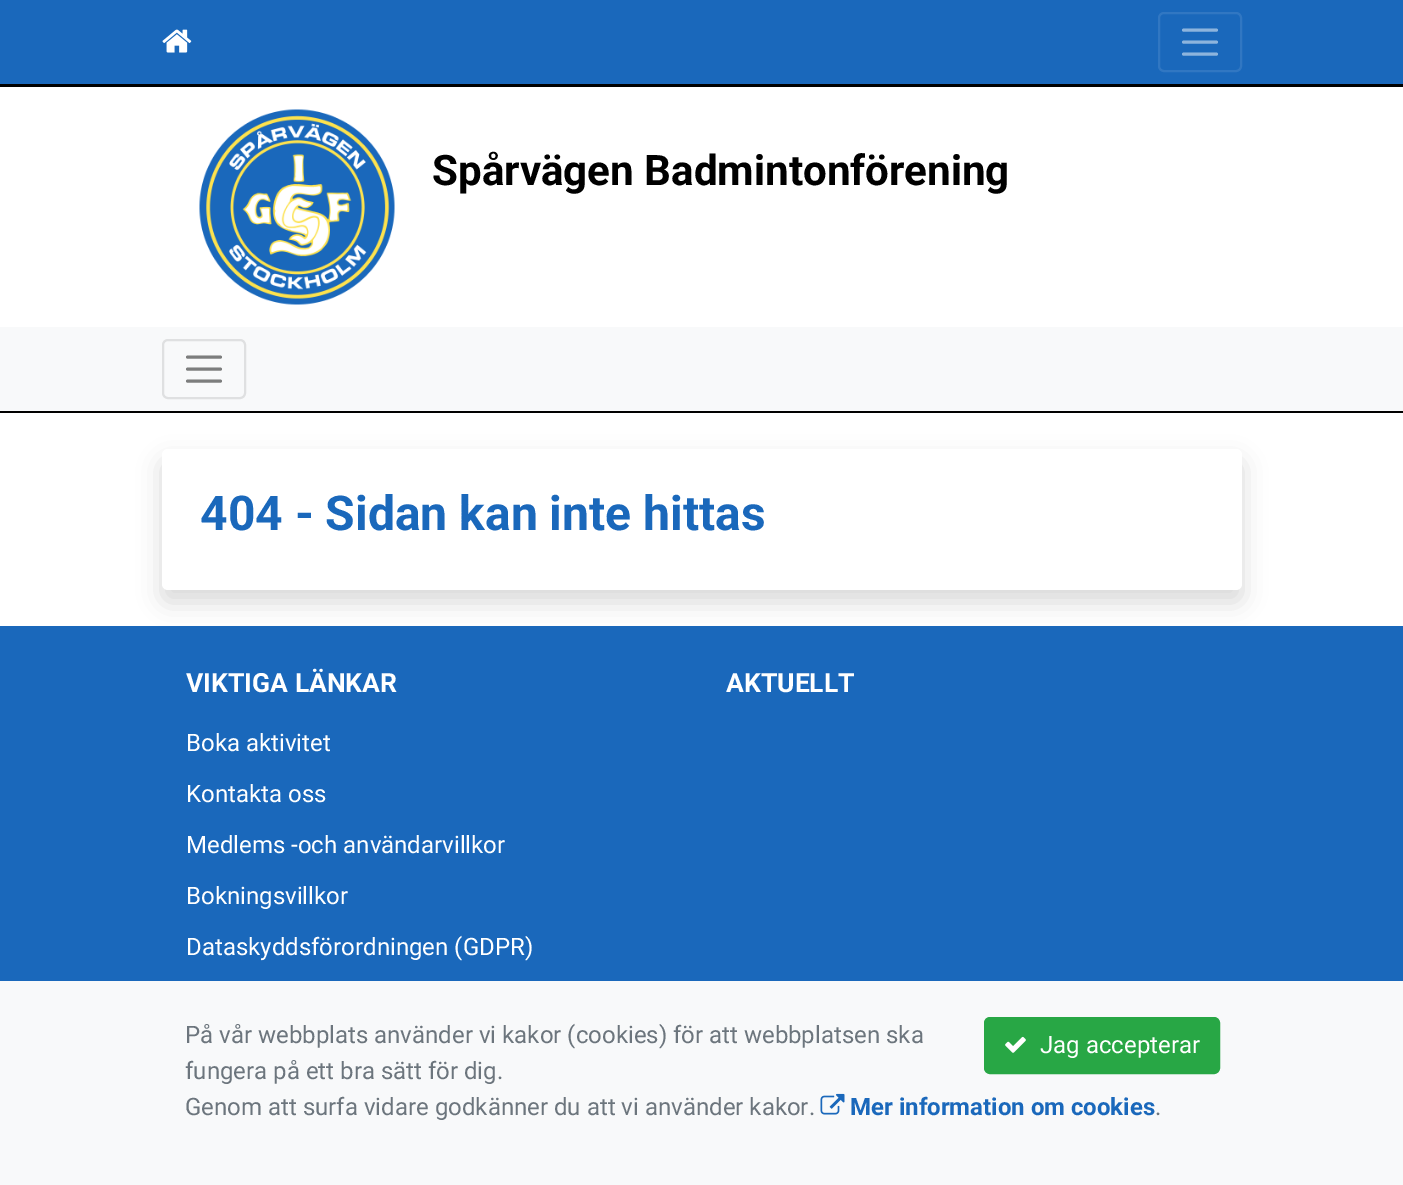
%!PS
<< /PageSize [1403 1185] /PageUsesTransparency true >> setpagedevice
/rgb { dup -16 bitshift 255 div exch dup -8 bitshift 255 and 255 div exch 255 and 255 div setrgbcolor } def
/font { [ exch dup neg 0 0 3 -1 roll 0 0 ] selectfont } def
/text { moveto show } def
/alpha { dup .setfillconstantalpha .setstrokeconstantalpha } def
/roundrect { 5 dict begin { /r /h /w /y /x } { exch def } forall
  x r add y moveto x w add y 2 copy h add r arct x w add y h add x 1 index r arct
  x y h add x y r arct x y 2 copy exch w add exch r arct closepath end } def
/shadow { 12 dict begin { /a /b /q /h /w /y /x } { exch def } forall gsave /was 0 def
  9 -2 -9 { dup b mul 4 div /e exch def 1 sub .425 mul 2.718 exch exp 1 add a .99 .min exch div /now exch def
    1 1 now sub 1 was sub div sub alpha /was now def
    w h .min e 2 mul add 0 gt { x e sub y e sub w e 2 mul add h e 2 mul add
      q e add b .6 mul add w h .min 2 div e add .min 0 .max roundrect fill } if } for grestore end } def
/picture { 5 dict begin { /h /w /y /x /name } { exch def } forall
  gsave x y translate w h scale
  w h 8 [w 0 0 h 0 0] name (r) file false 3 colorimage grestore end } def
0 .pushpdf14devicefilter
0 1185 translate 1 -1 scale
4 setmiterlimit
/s1 { /Roboto-Bold 42.1 font 16#000000 rgb } def
/s2 { /Roboto-Bold 48 font 16#1A68BB rgb } def
/s3 { /Roboto-Bold 26.5 font 16#FFFFFF rgb } def
/s4 { /Roboto-Regular 24 font 16#FFFFFF rgb } def
/s5 { /Roboto-Regular 24 font 16#6C757D rgb } def
/s6 { /Roboto-Bold 24 font 16#1A68BB rgb } def
16#FFFFFF rgb
0 0 1403 1185 rectfill
16#1A68BB rgb
0 0 1403 84 rectfill
16#000000 rgb
0 84 1403 3 rectfill
(pic1.raw) 162 29 30 24 picture
16#3177C2 rgb
2 setlinewidth
1159 13 82 58 5 roundrect stroke
16#8DB4DD rgb
3 setlinewidth
1 setlinecap
1183.5 30 moveto 1216.5 30 lineto 1183.5 42 moveto 1216.5 42 lineto 1183.5 54 moveto 1216.5 54 lineto stroke
(pic2.raw) 199 109 196 196 picture
s1
(Spårvägen Badmintonförening) 432 185 text
16#F8F9FA rgb
0 327 1403 84 rectfill
16#DFE0E1 rgb
2 setlinewidth
0 setlinecap
163 340 82 58 5 roundrect stroke
16#7C7D7D rgb
3 setlinewidth
1 setlinecap
187.5 357 moveto 220.5 357 lineto 187.5 369 moveto 220.5 369 lineto 187.5 381 moveto 220.5 381 lineto stroke
16#000000 rgb
0 411 1403 2 rectfill
162 461 1080 141 6 12 0.15 shadow
16#FFFFFF rgb
162 449 1080 141 6 roundrect fill
s2
(404 - Sidan kan inte hittas) 200 530 text
0 626 1403 355 rectfill
s3
(VIKTIGA LÄNKAR) 186 692 text
s4
(Boka aktivitet) 186 751 text
(Kontakta oss) 186 802 text
(Medlems -och användarvillkor) 186 853 text
(Bokningsvillkor) 186 904 text
(Dataskyddsförordningen \(GDPR\)) 186 955 text
s3
(AKTUELLT) 726 692 text
16#F8F9FA rgb
0 981 1403 204 rectfill
s5
(På vår webbplats använder vi kakor \(cookies\) för att webbplatsen ska) 185 1043 text
(fungera på ett bra sätt för dig.) 185 1079 text
(Genom att surfa vidare godkänner du att vi använder kakor.) 185 1115 text
(pic3.raw) 820 1093 25 22 picture
s6
(Mer information om cookies) 850 1115 text
s5
(.) 1155 1115 text
16#28A745 rgb
985 1018 234 55 5 roundrect gsave fill grestore
2 setlinewidth
0 setlinecap
stroke
(pic4.raw) 1005 1036 21 17 picture
s4
(Jag accepterar) 1040 1053 text
.poppdf14devicefilter showpage
